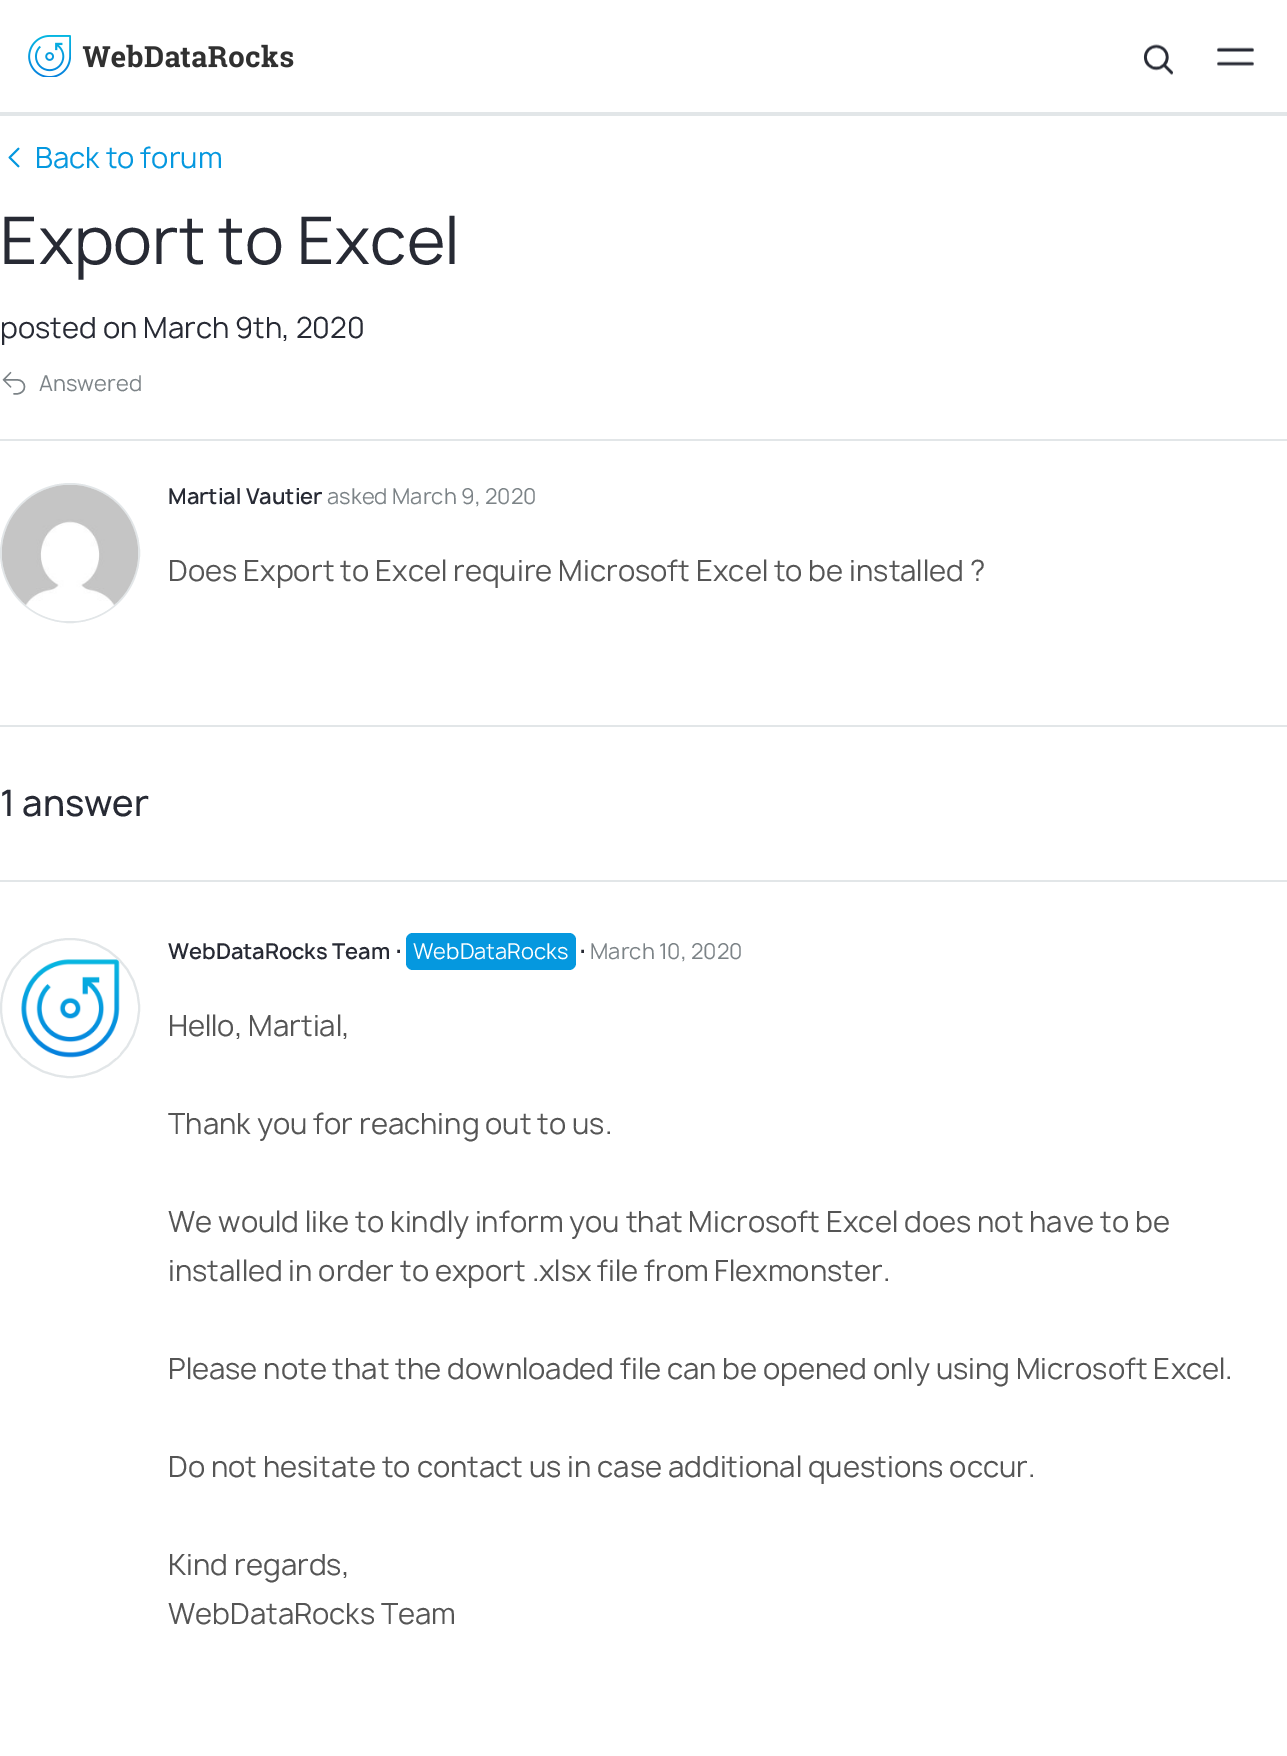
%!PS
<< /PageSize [1287 1756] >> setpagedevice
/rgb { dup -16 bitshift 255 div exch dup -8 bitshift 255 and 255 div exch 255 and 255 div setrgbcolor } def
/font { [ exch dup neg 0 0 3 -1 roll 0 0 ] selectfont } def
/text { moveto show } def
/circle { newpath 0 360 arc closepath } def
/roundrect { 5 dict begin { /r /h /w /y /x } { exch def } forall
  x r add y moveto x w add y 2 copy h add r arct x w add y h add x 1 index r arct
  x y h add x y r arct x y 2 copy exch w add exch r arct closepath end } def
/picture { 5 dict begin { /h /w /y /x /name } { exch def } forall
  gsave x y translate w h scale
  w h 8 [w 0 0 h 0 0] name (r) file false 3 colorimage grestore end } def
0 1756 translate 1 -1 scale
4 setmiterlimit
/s1 { /Manrope-Regular 28 font 16#0598DF rgb } def
/s2 { /Manrope-Regular 63 font 16#272A34 rgb } def
/s3 { /Manrope-Regular 28 font 16#272A34 rgb } def
/s4 { /Manrope-Regular 21 font 16#7C8387 rgb } def
/s5 { /Manrope-SemiBold 21 font 16#272A34 rgb } def
/s6 { /Manrope-Regular 28 font 16#555555 rgb } def
/s7 { /Manrope-Medium 35 font 16#272A34 rgb } def
/s8 { /DejaVuSans-Bold 21 font 16#272A34 rgb } def
/s9 { /Manrope-Regular 21 font 16#FFFFFF rgb } def
16#FFFFFF rgb
0 0 1287 1756 rectfill
16#E2E6E8 rgb
0 112 1287 4 rectfill
(pic1.raw) 28 35 266 42 picture
(pic2.raw) 1143 44 30 31 picture
(pic3.raw) 1217 47 37 19 picture
(pic4.raw) 8 147 12 21 picture
s1
(Back to forum) 35 168 text
s2
(Export to Excel) 0 264 text
s3
(posted on March 9th, 2020) 0 338 text
16#E2E6E8 rgb
0 725 1287 2 rectfill
0 439 1287 2 rectfill
(pic5.raw) 2 371 24 24 picture
s4
(Answered) 39 391 text
16#E2E6E8 rgb
2 setlinewidth
70 553 69 circle stroke
(pic6.raw) 2 485 136 136 picture
s5
(Martial Vautier) 168 504 text
s4
(asked March 9, 2020) 327 504 text
s6
(Does Export to Excel require Microsoft Excel to be installed ?) 168 581 text
s7
(1 answer) 0 816 text
16#E2E6E8 rgb
0 880 1287 2 rectfill
70 1008 69 circle stroke
(pic7.raw) 21 959 99 99 picture
s5
(WebDataRocks Team) 168 959 text
s8
(⋅) 395 959 text
16#0598DF rgb
406 933 170 37 7 roundrect fill
s9
(WebDataRocks) 413 959 text
s8
(⋅) 579 959 text
s4
(March 10, 2020) 590 959 text
s6
(Hello, Martial,) 168 1036 text
(Thank you for reaching out to us.) 168 1134 text
(We would like to kindly inform you that Microsoft Excel does not have to be) 168 1232 text
(installed in order to export .xlsx file from Flexmonster.) 168 1281 text
(Please note that the downloaded file can be opened only using Microsoft Excel.) 168 1379 text
(Do not hesitate to contact us in case additional questions occur.) 168 1477 text
(Kind regards,) 168 1575 text
(WebDataRocks Team) 168 1624 text
showpage
